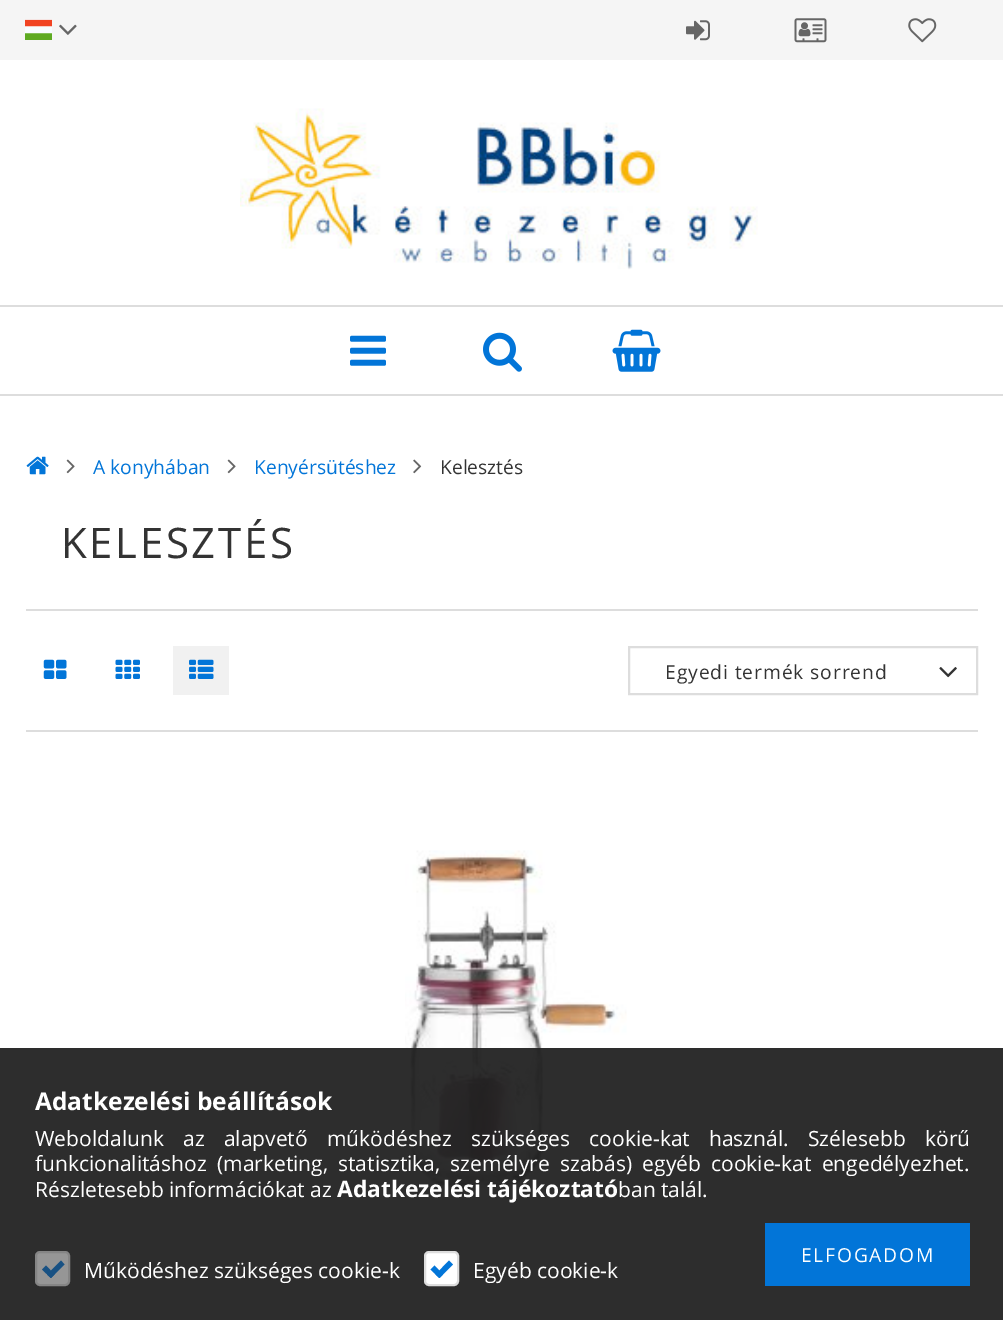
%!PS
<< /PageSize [1003 1320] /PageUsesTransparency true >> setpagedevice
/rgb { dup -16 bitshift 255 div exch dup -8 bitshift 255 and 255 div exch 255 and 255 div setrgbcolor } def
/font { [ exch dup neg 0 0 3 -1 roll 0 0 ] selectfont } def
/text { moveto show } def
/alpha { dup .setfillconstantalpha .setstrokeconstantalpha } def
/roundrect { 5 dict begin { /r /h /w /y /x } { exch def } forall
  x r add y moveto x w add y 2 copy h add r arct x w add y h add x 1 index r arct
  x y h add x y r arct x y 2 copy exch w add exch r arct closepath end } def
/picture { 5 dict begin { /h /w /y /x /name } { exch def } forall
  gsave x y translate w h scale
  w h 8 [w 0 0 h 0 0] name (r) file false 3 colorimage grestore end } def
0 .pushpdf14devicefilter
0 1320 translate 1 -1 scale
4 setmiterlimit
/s1 { /OpenSans-Regular 19.25 font 16#0275D8 rgb } def
/s2 { /OpenSans-Regular 19.25 font 16#333333 rgb } def
/s3 { /OpenSans-Bold 24.5 font 16#FFFFFF rgb } def
/s4 { /OpenSans-Regular 21 font 16#FFFFFF rgb } def
/s5 { /OpenSans-Bold 22.75 font 16#FFFFFF rgb } def
16#FFFFFF rgb
0 0 1003 1320 rectfill
16#F5F5F5 rgb
0 0 1003 60 rectfill
(pic1.raw) 25 19 27 21 picture
(pic2.raw) 59 24 18 11 picture
(pic3.raw) 686 20 24 21 picture
(pic4.raw) 794 18 33 25 picture
(pic5.raw) 908 18 29 25 picture
(pic6.raw) 240 108 518 162 picture
16#DDDDDD rgb
0 305 1003 2 rectfill
0 394 1003 2 rectfill
(pic7.raw) 350 335 36 31 picture
(pic8.raw) 483 332 39 40 picture
(pic9.raw) 612 329 49 43 picture
(pic10.raw) 26 456 23 19 picture
(pic11.raw) 66 459 9 15 picture
s1
(A konyhában) 93 474 text
(pic11.raw) 227 459 9 15 picture
(Kenyérsütéshez) 254 474 text
(pic12.raw) 413 459 9 15 picture
s2
(Kelesztés) 440 474 text
/OpenSans-Regular 42 font
61 558 moveto 2.6 0 (KELESZTÉS) ashow
16#DDDDDD rgb
26 609 952 2 rectfill
(pic13.raw) 43 659 24 20 picture
(pic14.raw) 115 659 25 20 picture
16#F1F1F1 rgb
173 646 56 49 rectfill
(pic15.raw) 189 659 25 20 picture
16#DDDDDD rgb
2 setlinewidth
629 647 348 47 rectstroke
/OpenSans-Regular 19.25 font
16#333333 rgb
665 679 moveto 0.9 0 (Egyedi termék sorrend) ashow
(pic16.raw) 939 667 18 11 picture
16#DDDDDD rgb
26 730 952 2 rectfill
(pic17.raw) 405 850 222 339 picture
0.95 alpha
16#222222 rgb
0 1048 1003 272 rectfill
1 alpha
s3
(Adatkezelési beállítások) 35 1110 text
/OpenSans-Regular 21 font
35 1146 moveto 13.75 0 32 (Weboldalunk az alapvető működéshez szükséges cookie-kat használ. Szélesebb körű) widthshow
35 1171 moveto 4.75 0 32 (funkcionalitáshoz \(marketing, statisztika, személyre szabás\) egyéb cookie-kat engedélyezhet.) widthshow
(Részletesebb információkat az) 35 1197 text
s5
(Adatkezelési tájékoztató) 337 1197 text
s4
(ban talál.) 618 1197 text
16#0275D8 rgb
765 1223 205 63 rectfill
/OpenSans-Regular 19.25 font
16#FFFFFF rgb
801 1262 moveto 1.75 0 (ELFOGADOM) ashow
16#969696 rgb
36 1252 33 33 4 roundrect gsave fill grestore
16#858585 rgb
stroke
16#185183 rgb
47 1274.5 moveto 61 1260.5 lineto 64.5 1264.5 lineto 51 1278 lineto closepath fill
42 1269.5 moveto 46 1265.5 lineto 54.5 1274.5 lineto 51 1278 lineto closepath fill
s4
(Működéshez szükséges cookie-k) 84 1278 text
425 1252 33 33 4 roundrect gsave fill grestore
16#DDDDDD rgb
stroke
16#0275D8 rgb
435.5 1274.5 moveto 449 1260.5 lineto 453 1264.5 lineto 439.5 1278 lineto closepath fill
430.5 1269.5 moveto 434.5 1265.5 lineto 443 1274.5 lineto 439.5 1278 lineto closepath fill
s4
(Egyéb cookie-k) 473 1278 text
.poppdf14devicefilter showpage
